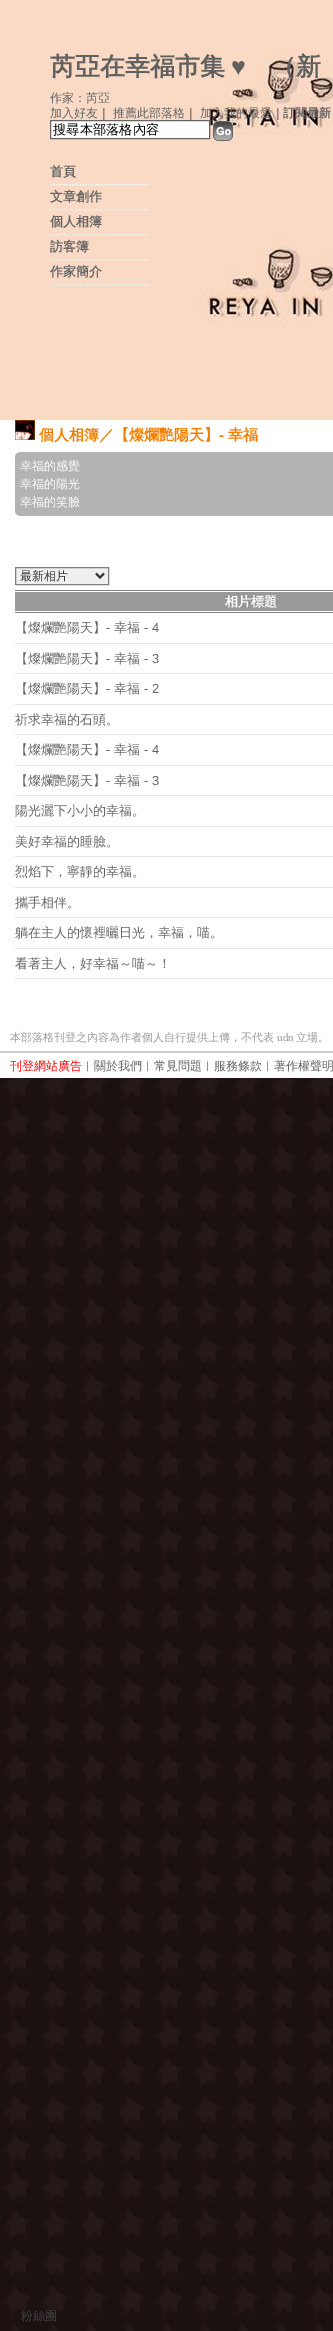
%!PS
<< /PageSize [333 2331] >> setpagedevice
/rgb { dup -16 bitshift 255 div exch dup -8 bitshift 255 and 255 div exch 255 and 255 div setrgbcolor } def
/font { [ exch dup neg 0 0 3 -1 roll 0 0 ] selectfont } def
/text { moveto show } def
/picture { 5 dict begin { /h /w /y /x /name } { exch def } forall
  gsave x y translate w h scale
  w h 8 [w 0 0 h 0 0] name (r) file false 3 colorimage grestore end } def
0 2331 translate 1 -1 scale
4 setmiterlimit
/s1 { /WenQuanYiZenHei-Bold 25 font 16#606060 rgb } def
/s2 { /LiberationSerif-Bold 25 font 16#606060 rgb } def
/s3 { /WenQuanYiZenHei-Medium 12 font 16#666666 rgb } def
/s4 { /WenQuanYiZenHei-Medium 12 font 16#333333 rgb } def
/s5 { /WenQuanYiZenHei-Bold 12 font 16#666666 rgb } def
/s6 { /WenQuanYiZenHei-Medium 13.25 font 16#000000 rgb } def
/s7 { /WenQuanYiZenHei-Bold 13 font 16#666666 rgb } def
/s8 { /WenQuanYiZenHei-Bold 15 font 16#F47E00 rgb } def
/s9 { /LiberationSans-Bold 15 font 16#F47E00 rgb } def
/s10 { /WenQuanYiZenHei-Medium 12 font 16#FFFFFF rgb } def
/s11 { /WenQuanYiZenHei-Bold 13 font 16#FFFFFF rgb } def
/s12 { /WenQuanYiZenHei-Medium 13 font 16#666666 rgb } def
/s13 { /LiberationSans-Regular 13 font 16#666666 rgb } def
/s14 { /WenQuanYiZenHei-Medium 11 font 16#999999 rgb } def
/s15 { /LiberationSerif-Regular 11 font 16#999999 rgb } def
/s16 { /WenQuanYiZenHei-Medium 12 font 16#FF0000 rgb } def
/s17 { /WenQuanYiZenHei-Medium 12 font 16#444444 rgb } def
16#FFFFFF rgb
0 0 333 2331 rectfill
(pic1.raw) 0 1078 333 1253 picture
(pic2.raw) 0 0 333 420 picture
s1
(芮亞在幸福市集) 50 75 text
s2
(♥) 231 75 text
s1
(（新) 271 75 text
s3
(作家：芮亞) 50 102 text
(加入好友) 50 117 text
s4
(｜) 98 117 text
s3
(推薦此部落格) 113 117 text
s4
(｜) 185 117 text
s3
(加入我的最愛) 200 117 text
s4
(｜) 272 117 text
s5
(訂閱最新) 283 117 text
16#FFFFFF rgb
50.5 120.5 moveto 209.5 120.5 lineto 209.5 138.5 lineto 50.5 138.5 lineto closepath gsave fill grestore
16#666666 rgb
stroke
s6
(搜尋本部落格內容) 53 134 text
(pic3.raw) 213 121 20 20 picture
16#FFFFFF rgb
[1 1] 0 setdash
50 184.5 moveto 150 184.5 lineto stroke
s7
(首頁) 50 176 text
16#FFFFFF rgb
50 209.5 moveto 150 209.5 lineto stroke
s7
(文章創作) 50 201 text
16#FFFFFF rgb
50 234.5 moveto 150 234.5 lineto stroke
s7
(個人相簿) 50 226 text
16#FFFFFF rgb
50 259.5 moveto 150 259.5 lineto stroke
s7
(訪客簿) 50 251 text
16#FFFFFF rgb
50 284.5 moveto 150 284.5 lineto stroke
s7
(作家簡介) 50 276 text
(pic4.raw) 15 420 20 20 picture
s8
(個人相簿／【燦爛艷陽天】) 39 440 text
s9
(-) 219 440 text
s8
(幸福) 228 440 text
(pic5.raw) 15 452 5 5 picture
16#B3B3B3 rgb
20 452 313 5 rectfill
15 457 318 54 rectfill
s10
(幸福的感覺) 20 470 text
(幸福的陽光) 20 488 text
(幸福的笑臉) 20 506 text
(pic6.raw) 15 511 5 5 picture
16#B3B3B3 rgb
20 511 313 5 rectfill
16#EFEFEF rgb
15.5 567.5 moveto 108.5 567.5 lineto 108.5 584.5 lineto 15.5 584.5 lineto closepath gsave fill grestore
16#808080 rgb
[] 0 setdash
stroke
16#333333 rgb
2 setlinewidth
96 573.5 moveto 100 577.5 lineto 104 573.5 lineto stroke
(最新相片) 20 580 text
16#999999 rgb
15 592 318 19 rectfill
16#808080 rgb
15 590 318 1 rectfill
s11
(相片標題) 225 606 text
16#808080 rgb
15 612 318 1 rectfill
s12
(【燦爛艷陽天】) 15 632 text
s13
(-) 106 632 text
s12
(幸福) 114 632 text
s13
(- 4) 144 632 text
16#E5E5E5 rgb
15 643 318 1 rectfill
s12
(【燦爛艷陽天】) 15 663 text
s13
(-) 106 663 text
s12
(幸福) 114 663 text
s13
(- 3) 144 663 text
16#E5E5E5 rgb
15 673 318 1 rectfill
s12
(【燦爛艷陽天】) 15 693 text
s13
(-) 106 693 text
s12
(幸福) 114 693 text
s13
(- 2) 144 693 text
16#E5E5E5 rgb
15 704 318 1 rectfill
s12
(祈求幸福的石頭。) 15 724 text
16#E5E5E5 rgb
15 734 318 1 rectfill
s12
(【燦爛艷陽天】) 15 754 text
s13
(-) 106 754 text
s12
(幸福) 114 754 text
s13
(- 4) 144 754 text
16#E5E5E5 rgb
15 765 318 1 rectfill
s12
(【燦爛艷陽天】) 15 785 text
s13
(-) 106 785 text
s12
(幸福) 114 785 text
s13
(- 3) 144 785 text
16#E5E5E5 rgb
15 795 318 1 rectfill
s12
(陽光灑下小小的幸福。) 15 815 text
16#E5E5E5 rgb
15 826 318 1 rectfill
s12
(美好幸福的睡臉。) 15 846 text
16#E5E5E5 rgb
15 856 318 1 rectfill
s12
(烈焰下，寧靜的幸福。) 15 876 text
16#E5E5E5 rgb
15 887 318 1 rectfill
s12
(攜手相伴。) 15 907 text
16#E5E5E5 rgb
15 917 318 1 rectfill
s12
(躺在主人的懷裡曬日光，幸福，喵。) 15 937 text
16#E5E5E5 rgb
15 948 318 1 rectfill
s12
(看著主人，好幸福～喵～！) 15 968 text
16#E5E5E5 rgb
15 978 318 1 rectfill
16#CCCCCC rgb
0 1051 333 2 rectfill
s14
(本部落格刊登之內容為作者個人自行提供上傳，不代表) 10 1041 text
s15
(udn) 277 1041 text
s14
(立場。) 296 1041 text
s16
(刊登網站廣告) 10 1070 text
s4
(︱) 82 1070 text
s3
(關於我們) 94 1070 text
s4
(︱) 142 1070 text
s3
(常見問題) 154 1070 text
s4
(︱) 202 1070 text
s3
(服務條款) 214 1070 text
s4
(︱) 262 1070 text
s3
(著作權聲明) 274 1070 text
s17
(粉絲團) 21 2320 text
showpage
